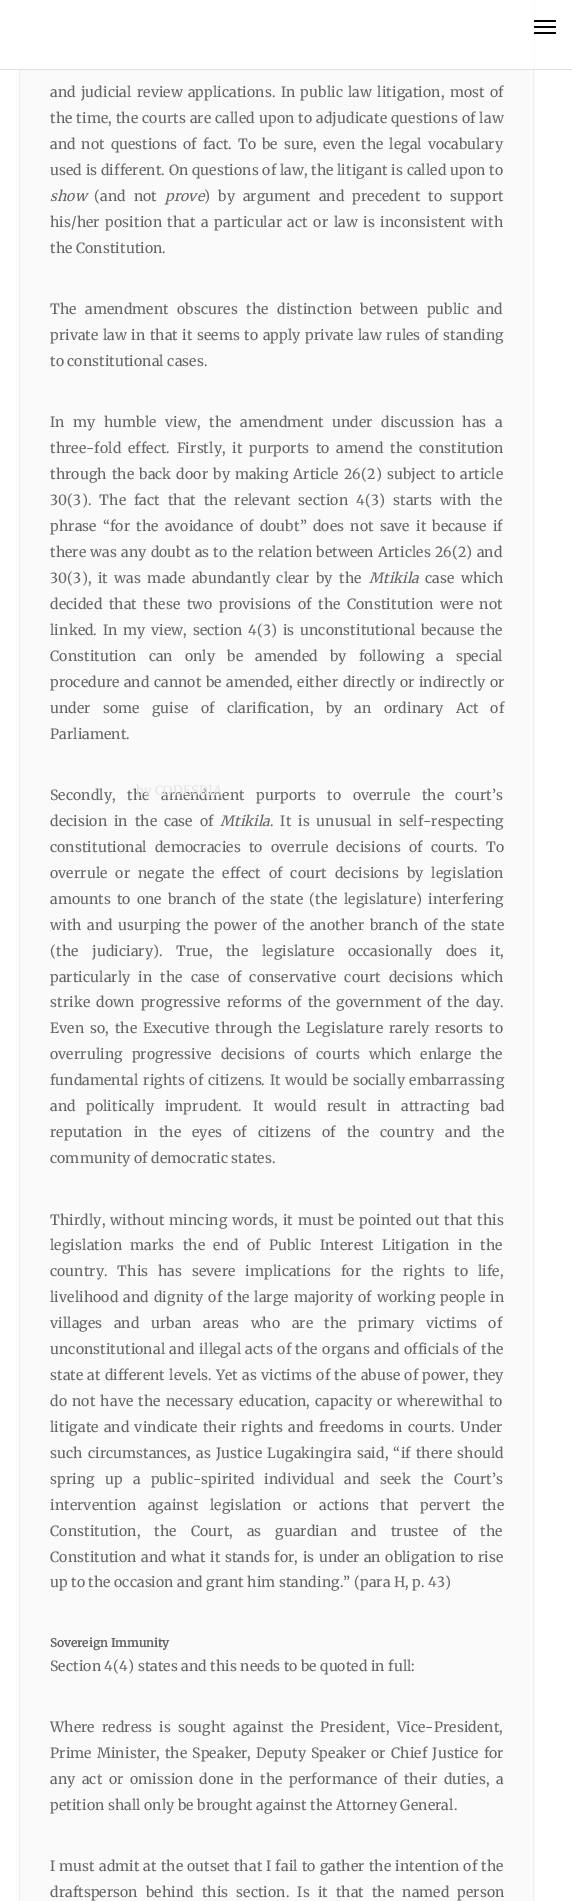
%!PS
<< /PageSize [572 1901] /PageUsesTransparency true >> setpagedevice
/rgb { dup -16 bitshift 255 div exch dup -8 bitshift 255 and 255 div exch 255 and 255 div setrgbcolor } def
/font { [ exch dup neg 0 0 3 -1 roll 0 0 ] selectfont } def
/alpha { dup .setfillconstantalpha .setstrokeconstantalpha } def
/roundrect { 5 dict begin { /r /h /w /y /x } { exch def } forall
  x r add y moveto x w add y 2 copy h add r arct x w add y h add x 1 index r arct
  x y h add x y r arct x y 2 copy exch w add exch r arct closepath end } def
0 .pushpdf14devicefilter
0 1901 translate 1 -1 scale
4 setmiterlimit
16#FFFFFF rgb
0 0 572 1901 rectfill
16#FAFAFA rgb
19.5 -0.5 moveto 533.5 -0.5 lineto 533.5 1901.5 lineto 19.5 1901.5 lineto closepath gsave fill grestore
16#EEEEEE rgb
stroke
0.92 alpha
16#FFFFFF rgb
19 0 515 69 rectfill
1 alpha
16#E0E0E0 rgb
0 69 572 1 rectfill
16#000000 rgb
534 20 22 2 1 roundrect fill
534 26 22 2 1 roundrect fill
534 32 22 2 1 roundrect fill
/Merriweather-Light 14.05 font
16#666666 rgb
50 97 moveto 1.75 0 32 0.1 0 (and judicial review applications. In public law litigation, most of) awidthshow
50 123 moveto 0.6 0 32 0.1 0 (the time, the courts are called upon to adjudicate questions of law) awidthshow
50 149 moveto 2.4 0 32 0.1 0 (and not questions of fact. To be sure, even the legal vocabulary) awidthshow
50 175 moveto 0.25 0 32 0.1 0 (used is different. On questions of law, the litigant is called upon to) awidthshow
/Merriweather-LightItalic 14.05 font
50 201 moveto 0.1 0 (show) ashow
/Merriweather-Light 14.05 font
94 201 moveto 4.5 0 32 0.1 0 (\(and not) awidthshow
/Merriweather-LightItalic 14.05 font
165 201 moveto 0.1 0 (prove) ashow
/Merriweather-Light 14.05 font
204 201 moveto 4.5 0 32 0.1 0 (\) by argument and precedent to support) awidthshow
50 227 moveto 2.1 0 32 0.1 0 (his/her position that a particular act or law is inconsistent with) awidthshow
50 253 moveto 0.1 0 (the Constitution.) ashow
50 314 moveto 5 0 32 0.1 0 (The amendment obscures the distinction between public and) awidthshow
50 340 moveto 1 0 32 0.1 0 (private law in that it seems to apply private law rules of standing) awidthshow
50 366 moveto 0.1 0 (to constitutional cases.) ashow
50 427 moveto 5 0 32 0.1 0 (In my humble view, the amendment under discussion has a) awidthshow
50 453 moveto 3.25 0 32 0.1 0 (three-fold effect. Firstly, it purports to amend the constitution) awidthshow
50 479 moveto 1.6 0 32 0.1 0 (through the back door by making Article 26\(2\) subject to article) awidthshow
50 505 moveto 4.5 0 32 0.1 0 (30\(3\). The fact that the relevant section 4\(3\) starts with the) awidthshow
50 531 moveto 2.75 0 32 0.1 0 (phrase “for the avoidance of doubt” does not save it because if) awidthshow
50 557 moveto 0.75 0 32 0.1 0 (there was any doubt as to the relation between Articles 26\(2\) and) awidthshow
50 583 moveto 3 0 32 0.1 0 (30\(3\), it was made abundantly clear by the) awidthshow
/Merriweather-LightItalic 14.05 font
369 583 moveto 0.1 0 (Mtikila) ashow
/Merriweather-Light 14.05 font
425 583 moveto 3 0 32 0.1 0 (case which) awidthshow
50 609 moveto 3 0 32 0.1 0 (decided that these two provisions of the Constitution were not) awidthshow
50 635 moveto 2.25 0 32 0.1 0 (linked. In my view, section 4\(3\) is unconstitutional because the) awidthshow
50 661 moveto 8.5 0 32 0.1 0 (Constitution can only be amended by following a special) awidthshow
50 687 moveto 1 0 32 0.1 0 (procedure and cannot be amended, either directly or indirectly or) awidthshow
50 713 moveto 8.75 0 32 0.1 0 (under some guise of clarification, by an ordinary Act of) awidthshow
50 739 moveto 0.1 0 (Parliament.) ashow
50 800 moveto 8 0 32 0.1 0 (Secondly, the amendment purports to overrule the court’s) awidthshow
50 826 moveto 3.25 0 32 0.1 0 (decision in the case of) awidthshow
/Merriweather-LightItalic 14.05 font
220 826 moveto 0.1 0 (Mtikila) ashow
/Merriweather-Light 14.05 font
270 826 moveto 3.25 0 32 0.1 0 (. It is unusual in self-respecting) awidthshow
50 852 moveto 4.75 0 32 0.1 0 (constitutional democracies to overrule decisions of courts. To) awidthshow
50 878 moveto 4.5 0 32 0.1 0 (overrule or negate the effect of court decisions by legislation) awidthshow
50 904 moveto 2.5 0 32 0.1 0 (amounts to one branch of the state \(the legislature\) interfering) awidthshow
50 930 moveto 2.1 0 32 0.1 0 (with and usurping the power of the another branch of the state) awidthshow
50 956 moveto 10 0 32 0.1 0 (\(the judiciary\). True, the legislature occasionally does it,) awidthshow
50 982 moveto 4.5 0 32 0.1 0 (particularly in the case of conservative court decisions which) awidthshow
50 1007 moveto 2.75 0 32 0.1 0 (strike down progressive reforms of the government of the day.) awidthshow
50 1033 moveto 2.4 0 32 0.1 0 (Even so, the Executive through the Legislature rarely resorts to) awidthshow
50 1059 moveto 5.5 0 32 0.1 0 (overruling progressive decisions of courts which enlarge the) awidthshow
50 1085 moveto 1.25 0 32 0.1 0 (fundamental rights of citizens. It would be socially embarrassing) awidthshow
50 1111 moveto 7 0 32 0.1 0 (and politically imprudent. It would result in attracting bad) awidthshow
50 1137 moveto 7.5 0 32 0.1 0 (reputation in the eyes of citizens of the country and the) awidthshow
50 1163 moveto 0.1 0 (community of democratic states.) ashow
50 1225 moveto 1.4 0 32 0.1 0 (Thirdly, without mincing words, it must be pointed out that this) awidthshow
50 1250 moveto 4.75 0 32 0.1 0 (legislation marks the end of Public Interest Litigation in the) awidthshow
50 1276 moveto 6.25 0 32 0.1 0 (country. This has severe implications for the rights to life,) awidthshow
50 1302 moveto 1.5 0 32 0.1 0 (livelihood and dignity of the large majority of working people in) awidthshow
50 1328 moveto 8 0 32 0.1 0 (villages and urban areas who are the primary victims of) awidthshow
50 1354 moveto 1 0 32 0.1 0 (unconstitutional and illegal acts of the organs and officials of the) awidthshow
50 1380 moveto 0.75 0 32 0.1 0 (state at different levels. Yet as victims of the abuse of power, they) awidthshow
50 1406 moveto 1.75 0 32 0.1 0 (do not have the necessary education, capacity or wherewithal to) awidthshow
50 1432 moveto 1.75 0 32 0.1 0 (litigate and vindicate their rights and freedoms in courts. Under) awidthshow
50 1458 moveto 1.75 0 32 0.1 0 (such circumstances, as Justice Lugakingira said, “if there should) awidthshow
50 1484 moveto 6.75 0 32 0.1 0 (spring up a public-spirited individual and seek the Court’s) awidthshow
50 1510 moveto 8 0 32 0.1 0 (intervention against legislation or actions that pervert the) awidthshow
50 1536 moveto 10.5 0 32 0.1 0 (Constitution, the Court, as guardian and trustee of the) awidthshow
50 1562 moveto 1 0 32 0.1 0 (Constitution and what it stands for, is under an obligation to rise) awidthshow
50 1587 moveto 0.1 0 (up to the occasion and grant him standing.” \(para H, p. 43\)) ashow
/Merriweather-Bold 11.75 font
50 1647 moveto 0.1 0 (Sovereign Immunity) ashow
/Merriweather-Light 14.05 font
50 1671 moveto 0.1 0 (Section 4\(4\) states and this needs to be quoted in full:) ashow
50 1732 moveto 3.75 0 32 0.1 0 (Where redress is sought against the President, Vice-President,) awidthshow
50 1758 moveto 1.75 0 32 0.1 0 (Prime Minister, the Speaker, Deputy Speaker or Chief Justice for) awidthshow
50 1784 moveto 3 0 32 0.1 0 (any act or omission done in the performance of their duties, a) awidthshow
50 1810 moveto 0.1 0 (petition shall only be brought against the Attorney General.) ashow
50 1871 moveto 0.6 0 32 0.1 0 (I must admit at the outset that I fail to gather the intention of the) awidthshow
50 1897 moveto 4.5 0 32 0.1 0 (draftsperson behind this section. Is it that the named person) awidthshow
/Merriweather-Light 13 font
16#E4E4E4 rgb
136 795 moveto 0.1 0 (by CODESRIA) ashow
.poppdf14devicefilter showpage
